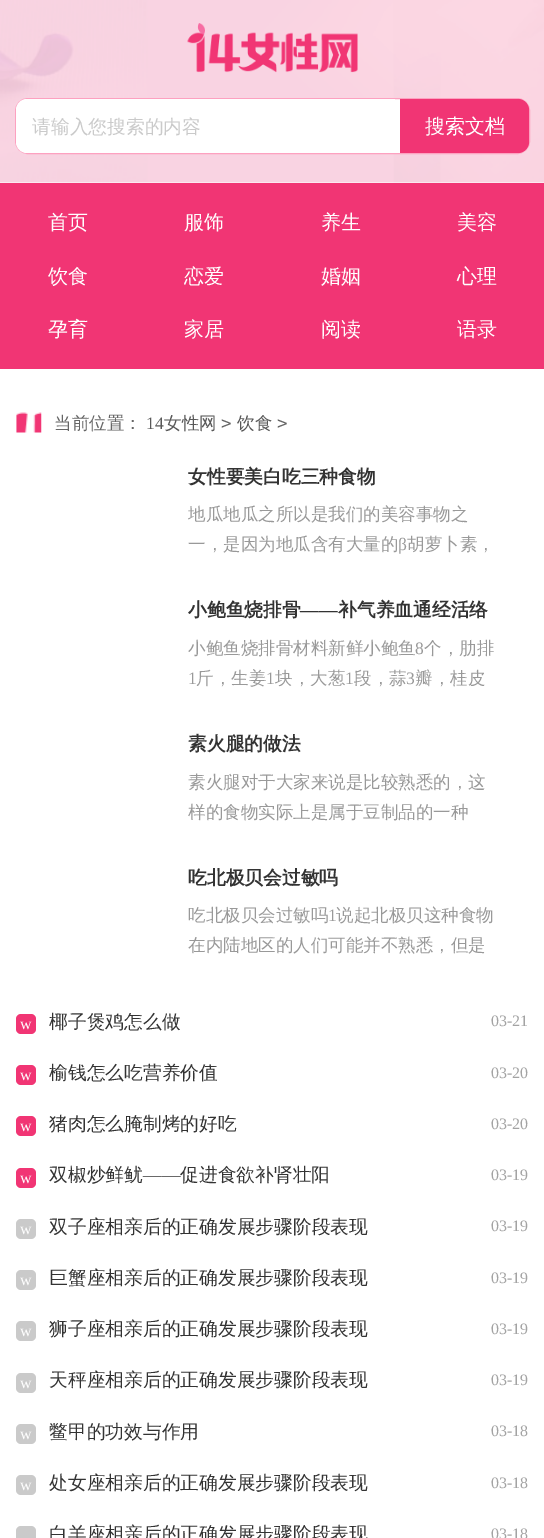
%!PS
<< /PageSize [544 1538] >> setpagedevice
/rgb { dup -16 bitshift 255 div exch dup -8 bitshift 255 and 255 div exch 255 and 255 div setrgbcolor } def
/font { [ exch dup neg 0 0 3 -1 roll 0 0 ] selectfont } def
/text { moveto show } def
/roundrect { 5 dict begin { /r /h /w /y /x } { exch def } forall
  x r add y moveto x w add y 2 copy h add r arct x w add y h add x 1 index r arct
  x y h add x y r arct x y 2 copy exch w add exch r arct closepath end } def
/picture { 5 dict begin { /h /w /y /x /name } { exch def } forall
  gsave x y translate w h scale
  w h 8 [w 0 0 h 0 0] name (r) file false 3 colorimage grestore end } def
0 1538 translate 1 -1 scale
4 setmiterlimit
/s1 { /WenQuanYiZenHei-Medium 18.75 font 16#CACACA rgb } def
/s2 { /WenQuanYiZenHei-Medium 20 font 16#FFFFFF rgb } def
/s3 { /WenQuanYiZenHei-Medium 17.5 font 16#666666 rgb } def
/s4 { /LiberationSerif-Regular 17.5 font 16#585858 rgb } def
/s5 { /WenQuanYiZenHei-Medium 17.5 font 16#585858 rgb } def
/s6 { /DejaVuSansMono-Regular 17.5 font 16#666666 rgb } def
/s7 { /WenQuanYiZenHei-Bold 18.75 font 16#333333 rgb } def
/s8 { /WenQuanYiZenHei-Medium 17.5 font 16#999999 rgb } def
/s9 { /LiberationSerif-Regular 17.5 font 16#999999 rgb } def
/s10 { /LiberationSerif-Bold 18.75 font 16#333333 rgb } def
/s11 { /LiberationSerif-Regular 16 font 16#FFFFFF rgb } def
/s12 { /WenQuanYiZenHei-Medium 18.75 font 16#333333 rgb } def
/s13 { /LiberationSerif-Regular 16 font 16#A3A3A3 rgb } def
/s14 { /LiberationSerif-Regular 18.75 font 16#333333 rgb } def
16#FFFFFF rgb
0 0 544 1538 rectfill
(pic1.raw) 0 0 544 183 picture
(pic2.raw) 187 23 171 50 picture
15.5 98.5 514 55 12.5 roundrect gsave fill grestore
16#FDA1C0 rgb
stroke
16#FFFFFF rgb
27 99 moveto 395 99 lineto 395 153 lineto 27 153 lineto 21 153 16 148 16 142 curveto 16 110 lineto 16 104 21 99 27 99 curveto closepath fill
s1
(请输入您搜索的内容) 32 133 text
16#F13574 rgb
400 99 moveto 518 99 lineto 524 99 529 104 529 110 curveto 529 142 lineto 529 148 524 153 518 153 curveto 400 153 lineto closepath fill
s2
(搜索文档) 425 133 text
16#F13574 rgb
0 183 544 186 rectfill
s2
(首页) 48 229 text
(服饰) 184 229 text
(养生) 321 229 text
(美容) 457 229 text
(饮食) 48 283 text
(恋爱) 184 283 text
(婚姻) 321 283 text
(心理) 457 283 text
(孕育) 48 336 text
(家居) 184 336 text
(阅读) 321 336 text
(语录) 457 336 text
(pic3.raw) 16 412 26 21 picture
s3
(当前位置：) 54 429 text
s4
(14) 146 429 text
s5
(女性网) 164 429 text
s6
(>) 221 429 text
s5
(饮食) 237 429 text
s6
(>) 277 429 text
s7
(女性要美白吃三种食物) 188 483 text
s8
(地瓜地瓜之所以是我们的美容事物之) 188 520 text
(一，是因为地瓜含有大量的) 188 550 text
s9
(β) 398 550 text
s8
(胡萝卜素，) 407 550 text
s7
(小鲍鱼烧排骨) 188 616 text
s10
(——) 300 616 text
s7
(补气养血通经活络) 338 616 text
s8
(小鲍鱼烧排骨材料新鲜小鲍鱼) 188 654 text
s9
(8) 415 654 text
s8
(个，肋排) 424 654 text
s9
(1) 188 684 text
s8
(斤，生姜) 196 684 text
s9
(1) 266 684 text
s8
(块，大葱) 275 684 text
s9
(1) 345 684 text
s8
(段，蒜) 354 684 text
s9
(3) 406 684 text
s8
(瓣，桂皮) 415 684 text
s7
(素火腿的做法) 188 750 text
s8
(素火腿对于大家来说是比较熟悉的，这) 188 788 text
(样的食物实际上是属于豆制品的一种) 188 818 text
s7
(吃北极贝会过敏吗) 188 884 text
s8
(吃北极贝会过敏吗) 188 921 text
s9
(1) 328 921 text
s8
(说起北极贝这种食物) 336 921 text
(在内陆地区的人们可能并不熟悉，但是) 188 951 text
16#F13574 rgb
16 1014 20 20 5 roundrect fill
s11
(w) 20 1029 text
s12
(椰子煲鸡怎么做) 49 1028 text
s13
(03-21) 491 1026 text
16#F13574 rgb
16 1065 20 20 5 roundrect fill
s11
(w) 20 1080 text
s12
(榆钱怎么吃营养价值) 49 1079 text
s13
(03-20) 491 1078 text
16#F13574 rgb
16 1116 20 20 5 roundrect fill
s11
(w) 20 1131 text
s12
(猪肉怎么腌制烤的好吃) 49 1130 text
s13
(03-20) 491 1129 text
16#F13574 rgb
16 1168 20 20 5 roundrect fill
s11
(w) 20 1183 text
s12
(双椒炒鲜鱿) 49 1181 text
s14
(——) 143 1181 text
s12
(促进食欲补肾壮阳) 180 1181 text
s13
(03-19) 491 1180 text
16#CACACA rgb
16 1219 20 20 5 roundrect fill
s11
(w) 20 1234 text
s12
(双子座相亲后的正确发展步骤阶段表现) 49 1233 text
s13
(03-19) 491 1231 text
16#CACACA rgb
16 1270 20 20 5 roundrect fill
s11
(w) 20 1285 text
s12
(巨蟹座相亲后的正确发展步骤阶段表现) 49 1284 text
s13
(03-19) 491 1283 text
16#CACACA rgb
16 1321 20 20 5 roundrect fill
s11
(w) 20 1336 text
s12
(狮子座相亲后的正确发展步骤阶段表现) 49 1335 text
s13
(03-19) 491 1334 text
16#CACACA rgb
16 1373 20 20 5 roundrect fill
s11
(w) 20 1388 text
s12
(天秤座相亲后的正确发展步骤阶段表现) 49 1386 text
s13
(03-19) 491 1385 text
16#CACACA rgb
16 1424 20 20 5 roundrect fill
s11
(w) 20 1439 text
s12
(鳖甲的功效与作用) 49 1438 text
s13
(03-18) 491 1436 text
16#CACACA rgb
16 1475 20 20 5 roundrect fill
s11
(w) 20 1490 text
s12
(处女座相亲后的正确发展步骤阶段表现) 49 1489 text
s13
(03-18) 491 1488 text
16#CACACA rgb
16 1526 20 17 5 roundrect fill
s12
(白羊座相亲后的正确发展步骤阶段表现) 49 1540 text
s13
(03-18) 491 1539 text
showpage
